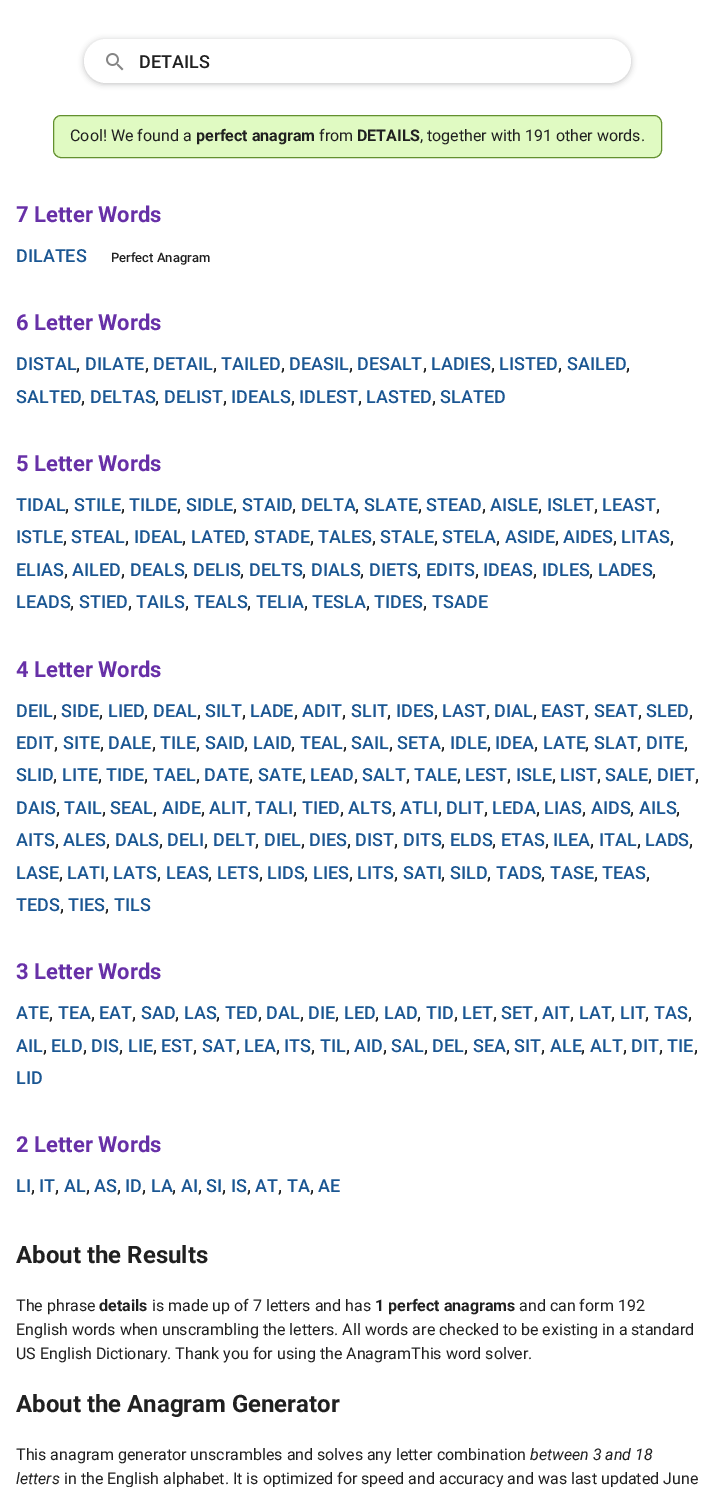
%!PS
<< /PageSize [715 1487] /PageUsesTransparency true >> setpagedevice
/rgb { dup -16 bitshift 255 div exch dup -8 bitshift 255 and 255 div exch 255 and 255 div setrgbcolor } def
/font { [ exch dup neg 0 0 3 -1 roll 0 0 ] selectfont } def
/text { moveto show } def
/alpha { dup .setfillconstantalpha .setstrokeconstantalpha } def
/roundrect { 5 dict begin { /r /h /w /y /x } { exch def } forall
  x r add y moveto x w add y 2 copy h add r arct x w add y h add x 1 index r arct
  x y h add x y r arct x y 2 copy exch w add exch r arct closepath end } def
/shadow { 12 dict begin { /a /b /q /h /w /y /x } { exch def } forall gsave /was 0 def
  9 -2 -9 { dup b mul 4 div /e exch def 1 sub .425 mul 2.718 exch exp 1 add a .99 .min exch div /now exch def
    1 1 now sub 1 was sub div sub alpha /was now def
    w h .min e 2 mul add 0 gt { x e sub y e sub w e 2 mul add h e 2 mul add
      q e add b .6 mul add w h .min 2 div e add .min 0 .max roundrect fill } if } for grestore end } def
/picture { 5 dict begin { /h /w /y /x /name } { exch def } forall
  gsave x y translate w h scale
  w h 8 [w 0 0 h 0 0] name (r) file false 3 colorimage grestore end } def
0 .pushpdf14devicefilter
0 1487 translate 1 -1 scale
4 setmiterlimit
/s1 { /Roboto-Medium 18 font 16#202020 rgb } def
/s2 { /Roboto-Regular 16 font 16#202020 rgb } def
/s3 { /Roboto-Bold 16 font 16#202020 rgb } def
/s4 { /Roboto-Bold 22 font 16#6730A7 rgb } def
/s5 { /Roboto-Medium 18 font 16#1A5692 rgb } def
/s6 { /Roboto-Medium 13 font 16#202020 rgb } def
/s7 { /Roboto-Bold 24 font 16#202020 rgb } def
/s8 { /Roboto-Italic 16 font 16#202020 rgb } def
16#FFFFFF rgb
0 0 715 1487 rectfill
16#202124 rgb
84 40 547 44 22 3 0.28 shadow
16#FFFFFF rgb
84 39 547 44 22 roundrect fill
(pic1.raw) 106 53 18 18 picture
s1
(DETAILS) 139 68 text
16#E0FAC2 rgb
53.5 115.5 608 42 7.5 roundrect gsave fill grestore
16#63902F rgb
stroke
s2
(Cool! We found a) 70 141 text
s3
(perfect anagram) 196 141 text
s2
(from) 319 141 text
s3
(DETAILS) 357 141 text
s2
(, together with 191 other words.) 420 141 text
s4
(7 Letter Words) 16 222 text
s5
(DILATES) 16 262 text
s6
(Perfect Anagram) 111 262 text
s4
(6 Letter Words) 16 330 text
s5
(DISTAL) 16 370 text
s1
(,) 76 370 text
s5
(DILATE) 85 370 text
s1
(,) 145 370 text
s5
(DETAIL) 153 370 text
s1
(,) 213 370 text
s5
(TAILED) 221 370 text
s1
(,) 281 370 text
s5
(DEASIL) 289 370 text
s1
(,) 349 370 text
s5
(DESALT) 357 370 text
s1
(,) 423 370 text
s5
(LADIES) 431 370 text
s1
(,) 491 370 text
s5
(LISTED) 499 370 text
s1
(,) 558 370 text
s5
(SAILED) 567 370 text
s1
(,) 626 370 text
s5
(SALTED) 16 403 text
s1
(,) 81 403 text
s5
(DELTAS) 90 403 text
s1
(,) 155 403 text
s5
(DELIST) 164 403 text
s1
(,) 223 403 text
s5
(IDEALS) 231 403 text
s1
(,) 291 403 text
s5
(IDLEST) 299 403 text
s1
(,) 358 403 text
s5
(LASTED) 366 403 text
s1
(,) 432 403 text
s5
(SLATED) 440 403 text
s4
(5 Letter Words) 16 471 text
s5
(TIDAL) 16 511 text
s1
(,) 65 511 text
s5
(STILE) 74 511 text
s1
(,) 121 511 text
s5
(TILDE) 129 511 text
s1
(,) 177 511 text
s5
(SIDLE) 186 511 text
s1
(,) 233 511 text
s5
(STAID) 242 511 text
s1
(,) 292 511 text
s5
(DELTA) 301 511 text
s1
(,) 355 511 text
s5
(SLATE) 364 511 text
s1
(,) 418 511 text
s5
(STEAD) 426 511 text
s1
(,) 482 511 text
s5
(AISLE) 490 511 text
s1
(,) 538 511 text
s5
(ISLET) 547 511 text
s1
(,) 594 511 text
s5
(LEAST) 602 511 text
s1
(,) 656 511 text
s5
(ISTLE) 16 543 text
s1
(,) 63 543 text
s5
(STEAL) 71 543 text
s1
(,) 125 543 text
s5
(IDEAL) 134 543 text
s1
(,) 182 543 text
s5
(LATED) 191 543 text
s1
(,) 245 543 text
s5
(STADE) 254 543 text
s1
(,) 310 543 text
s5
(TALES) 318 543 text
s1
(,) 372 543 text
s5
(STALE) 380 543 text
s1
(,) 434 543 text
s5
(STELA) 442 543 text
s1
(,) 496 543 text
s5
(ASIDE) 505 543 text
s1
(,) 555 543 text
s5
(AIDES) 563 543 text
s1
(,) 613 543 text
s5
(LITAS) 621 543 text
s1
(,) 670 543 text
s5
(ELIAS) 16 576 text
s1
(,) 64 576 text
s5
(AILED) 72 576 text
s1
(,) 121 576 text
s5
(DEALS) 130 576 text
s1
(,) 184 576 text
s5
(DELIS) 193 576 text
s1
(,) 240 576 text
s5
(DELTS) 249 576 text
s1
(,) 302 576 text
s5
(DIALS) 311 576 text
s1
(,) 360 576 text
s5
(DIETS) 369 576 text
s1
(,) 417 576 text
s5
(EDITS) 426 576 text
s1
(,) 475 576 text
s5
(IDEAS) 483 576 text
s1
(,) 533 576 text
s5
(IDLES) 542 576 text
s1
(,) 589 576 text
s5
(LADES) 598 576 text
s1
(,) 652 576 text
s5
(LEADS) 16 608 text
s1
(,) 70 608 text
s5
(STIED) 79 608 text
s1
(,) 128 608 text
s5
(TAILS) 136 608 text
s1
(,) 185 608 text
s5
(TEALS) 194 608 text
s1
(,) 247 608 text
s5
(TELIA) 256 608 text
s1
(,) 304 608 text
s5
(TESLA) 312 608 text
s1
(,) 366 608 text
s5
(TIDES) 374 608 text
s1
(,) 423 608 text
s5
(TSADE) 432 608 text
s4
(4 Letter Words) 16 677 text
s5
(DEIL) 16 717 text
s1
(,) 53 717 text
s5
(SIDE) 61 717 text
s1
(,) 99 717 text
s5
(LIED) 108 717 text
s1
(,) 144 717 text
s5
(DEAL) 153 717 text
s1
(,) 197 717 text
s5
(SILT) 205 717 text
s1
(,) 242 717 text
s5
(LADE) 250 717 text
s1
(,) 294 717 text
s5
(ADIT) 302 717 text
s1
(,) 342 717 text
s5
(SLIT) 351 717 text
s1
(,) 387 717 text
s5
(IDES) 396 717 text
s1
(,) 434 717 text
s5
(LAST) 442 717 text
s1
(,) 486 717 text
s5
(DIAL) 494 717 text
s1
(,) 533 717 text
s5
(EAST) 541 717 text
s1
(,) 585 717 text
s5
(SEAT) 594 717 text
s1
(,) 638 717 text
s5
(SLED) 646 717 text
s1
(,) 689 717 text
s5
(EDIT) 16 749 text
s1
(,) 54 749 text
s5
(SITE) 63 749 text
s1
(,) 100 749 text
s5
(DALE) 108 749 text
s1
(,) 152 749 text
s5
(TILE) 160 749 text
s1
(,) 196 749 text
s5
(SAID) 205 749 text
s1
(,) 244 749 text
s5
(LAID) 253 749 text
s1
(,) 291 749 text
s5
(TEAL) 300 749 text
s1
(,) 343 749 text
s5
(SAIL) 351 749 text
s1
(,) 389 749 text
s5
(SETA) 397 749 text
s1
(,) 441 749 text
s5
(IDLE) 450 749 text
s1
(,) 487 749 text
s5
(IDEA) 495 749 text
s1
(,) 534 749 text
s5
(LATE) 543 749 text
s1
(,) 585 749 text
s5
(SLAT) 594 749 text
s1
(,) 637 749 text
s5
(DITE) 646 749 text
s1
(,) 684 749 text
s5
(SLID) 16 781 text
s1
(,) 53 781 text
s5
(LITE) 62 781 text
s1
(,) 98 781 text
s5
(TIDE) 106 781 text
s1
(,) 144 781 text
s5
(TAEL) 153 781 text
s1
(,) 196 781 text
s5
(DATE) 204 781 text
s1
(,) 249 781 text
s5
(SATE) 258 781 text
s1
(,) 302 781 text
s5
(LEAD) 310 781 text
s1
(,) 354 781 text
s5
(SALT) 362 781 text
s1
(,) 406 781 text
s5
(TALE) 414 781 text
s1
(,) 457 781 text
s5
(LEST) 465 781 text
s1
(,) 507 781 text
s5
(ISLE) 516 781 text
s1
(,) 552 781 text
s5
(LIST) 560 781 text
s1
(,) 597 781 text
s5
(SALE) 605 781 text
s1
(,) 648 781 text
s5
(DIET) 657 781 text
s1
(,) 695 781 text
s5
(DAIS) 16 814 text
s1
(,) 56 814 text
s5
(TAIL) 64 814 text
s1
(,) 102 814 text
s5
(SEAL) 110 814 text
s1
(,) 153 814 text
s5
(AIDE) 162 814 text
s1
(,) 201 814 text
s5
(ALIT) 209 814 text
s1
(,) 247 814 text
s5
(TALI) 255 814 text
s1
(,) 293 814 text
s5
(TIED) 302 814 text
s1
(,) 340 814 text
s5
(ALTS) 348 814 text
s1
(,) 392 814 text
s5
(ATLI) 400 814 text
s1
(,) 438 814 text
s5
(DLIT) 446 814 text
s1
(,) 484 814 text
s5
(LEDA) 492 814 text
s1
(,) 536 814 text
s5
(LIAS) 544 814 text
s1
(,) 582 814 text
s5
(AIDS) 591 814 text
s1
(,) 630 814 text
s5
(AILS) 639 814 text
s1
(,) 676 814 text
s5
(AITS) 16 846 text
s1
(,) 55 846 text
s5
(ALES) 63 846 text
s1
(,) 106 846 text
s5
(DALS) 115 846 text
s1
(,) 159 846 text
s5
(DELI) 167 846 text
s1
(,) 204 846 text
s5
(DELT) 213 846 text
s1
(,) 255 846 text
s5
(DIEL) 264 846 text
s1
(,) 301 846 text
s5
(DIES) 309 846 text
s1
(,) 347 846 text
s5
(DIST) 355 846 text
s1
(,) 394 846 text
s5
(DITS) 403 846 text
s1
(,) 441 846 text
s5
(ELDS) 450 846 text
s1
(,) 492 846 text
s5
(ETAS) 501 846 text
s1
(,) 545 846 text
s5
(ILEA) 553 846 text
s1
(,) 590 846 text
s5
(ITAL) 599 846 text
s1
(,) 637 846 text
s5
(LADS) 645 846 text
s1
(,) 689 846 text
s5
(LASE) 16 879 text
s1
(,) 59 879 text
s5
(LATI) 67 879 text
s1
(,) 105 879 text
s5
(LATS) 113 879 text
s1
(,) 157 879 text
s5
(LEAS) 166 879 text
s1
(,) 208 879 text
s5
(LETS) 217 879 text
s1
(,) 259 879 text
s5
(LIDS) 267 879 text
s1
(,) 304 879 text
s5
(LIES) 313 879 text
s1
(,) 349 879 text
s5
(LITS) 357 879 text
s1
(,) 394 879 text
s5
(SATI) 403 879 text
s1
(,) 441 879 text
s5
(SILD) 450 879 text
s1
(,) 487 879 text
s5
(TADS) 496 879 text
s1
(,) 541 879 text
s5
(TASE) 550 879 text
s1
(,) 594 879 text
s5
(TEAS) 602 879 text
s1
(,) 646 879 text
s5
(TEDS) 16 911 text
s1
(,) 60 911 text
s5
(TIES) 68 911 text
s1
(,) 105 911 text
s5
(TILS) 114 911 text
s4
(3 Letter Words) 16 979 text
s5
(ATE) 16 1019 text
s1
(,) 49 1019 text
s5
(TEA) 58 1019 text
s1
(,) 91 1019 text
s5
(EAT) 99 1019 text
s1
(,) 132 1019 text
s5
(SAD) 141 1019 text
s1
(,) 175 1019 text
s5
(LAS) 184 1019 text
s1
(,) 216 1019 text
s5
(TED) 225 1019 text
s1
(,) 258 1019 text
s5
(DAL) 266 1019 text
s1
(,) 300 1019 text
s5
(DIE) 308 1019 text
s1
(,) 335 1019 text
s5
(LED) 344 1019 text
s1
(,) 375 1019 text
s5
(LAD) 384 1019 text
s1
(,) 417 1019 text
s5
(TID) 426 1019 text
s1
(,) 454 1019 text
s5
(LET) 462 1019 text
s1
(,) 493 1019 text
s5
(SET) 501 1019 text
s1
(,) 534 1019 text
s5
(AIT) 542 1019 text
s1
(,) 570 1019 text
s5
(LAT) 579 1019 text
s1
(,) 611 1019 text
s5
(LIT) 620 1019 text
s1
(,) 645 1019 text
s5
(TAS) 654 1019 text
s1
(,) 688 1019 text
s5
(AIL) 16 1052 text
s1
(,) 43 1052 text
s5
(ELD) 51 1052 text
s1
(,) 83 1052 text
s5
(DIS) 91 1052 text
s1
(,) 119 1052 text
s5
(LIE) 128 1052 text
s1
(,) 153 1052 text
s5
(EST) 161 1052 text
s1
(,) 193 1052 text
s5
(SAT) 202 1052 text
s1
(,) 236 1052 text
s5
(LEA) 244 1052 text
s1
(,) 276 1052 text
s5
(ITS) 284 1052 text
s1
(,) 311 1052 text
s5
(TIL) 320 1052 text
s1
(,) 346 1052 text
s5
(AID) 354 1052 text
s1
(,) 383 1052 text
s5
(SAL) 391 1052 text
s1
(,) 424 1052 text
s5
(DEL) 432 1052 text
s1
(,) 464 1052 text
s5
(SEA) 473 1052 text
s1
(,) 506 1052 text
s5
(SIT) 514 1052 text
s1
(,) 541 1052 text
s5
(ALE) 550 1052 text
s1
(,) 581 1052 text
s5
(ALT) 590 1052 text
s1
(,) 623 1052 text
s5
(DIT) 631 1052 text
s1
(,) 659 1052 text
s5
(TIE) 667 1052 text
s1
(,) 694 1052 text
s5
(LID) 16 1084 text
s4
(2 Letter Words) 16 1152 text
s5
(LI) 16 1192 text
s1
(,) 31 1192 text
s5
(IT) 39 1192 text
s1
(,) 55 1192 text
s5
(AL) 64 1192 text
s1
(,) 86 1192 text
s5
(AS) 94 1192 text
s1
(,) 117 1192 text
s5
(ID) 125 1192 text
s1
(,) 142 1192 text
s5
(LA) 151 1192 text
s1
(,) 172 1192 text
s5
(AI) 181 1192 text
s1
(,) 198 1192 text
s5
(SI) 206 1192 text
s1
(,) 222 1192 text
s5
(IS) 231 1192 text
s1
(,) 247 1192 text
s5
(AT) 255 1192 text
s1
(,) 278 1192 text
s5
(TA) 287 1192 text
s1
(,) 310 1192 text
s5
(AE) 318 1192 text
s7
(About the Results) 16 1263 text
s2
(The phrase) 16 1311 text
s3
(details) 99 1311 text
s2
(is made up of 7 letters and has) 152 1311 text
s3
(1 perfect anagrams) 375 1311 text
s2
(and can form 192) 519 1311 text
(English words when unscrambling the letters. All words are checked to be existing in a standard) 16 1335 text
(US English Dictionary. Thank you for using the AnagramThis word solver.) 16 1359 text
s7
(About the Anagram Generator) 16 1412 text
s2
(This anagram generator unscrambles and solves any letter combination) 16 1460 text
s8
(between 3 and 18) 530 1460 text
(letters) 16 1484 text
s2
(in the English alphabet. It is optimized for speed and accuracy and was last updated June) 64 1484 text
.poppdf14devicefilter showpage
